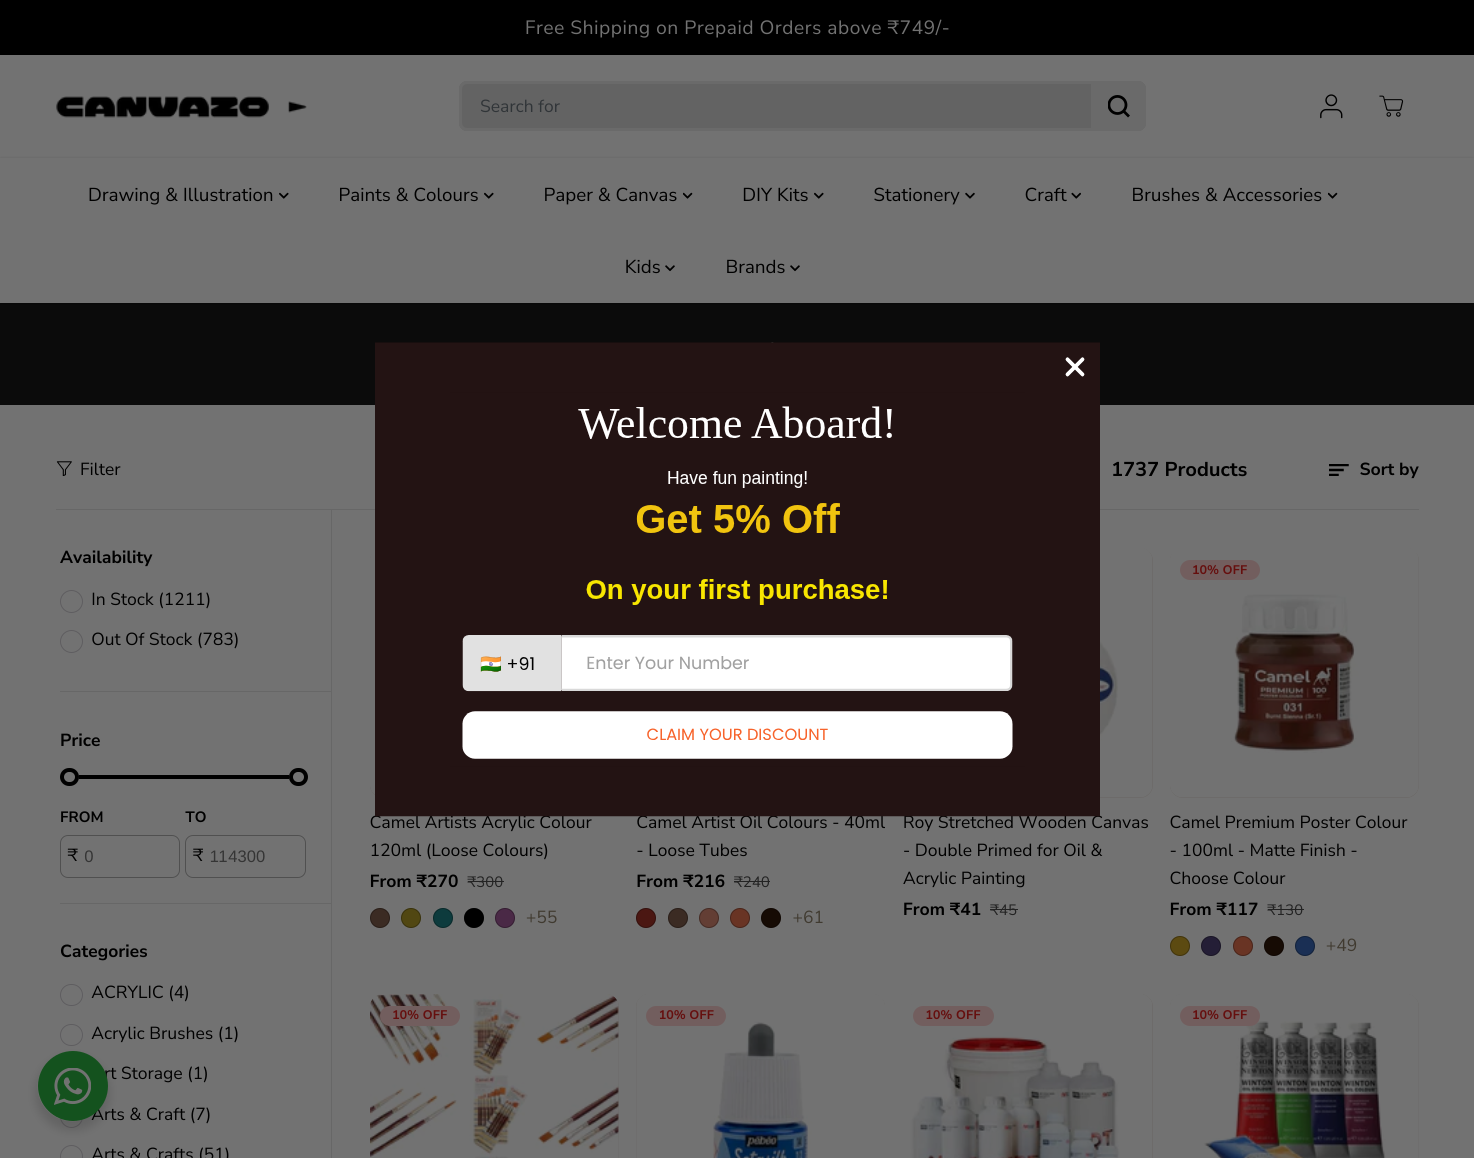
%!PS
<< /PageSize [1474 1158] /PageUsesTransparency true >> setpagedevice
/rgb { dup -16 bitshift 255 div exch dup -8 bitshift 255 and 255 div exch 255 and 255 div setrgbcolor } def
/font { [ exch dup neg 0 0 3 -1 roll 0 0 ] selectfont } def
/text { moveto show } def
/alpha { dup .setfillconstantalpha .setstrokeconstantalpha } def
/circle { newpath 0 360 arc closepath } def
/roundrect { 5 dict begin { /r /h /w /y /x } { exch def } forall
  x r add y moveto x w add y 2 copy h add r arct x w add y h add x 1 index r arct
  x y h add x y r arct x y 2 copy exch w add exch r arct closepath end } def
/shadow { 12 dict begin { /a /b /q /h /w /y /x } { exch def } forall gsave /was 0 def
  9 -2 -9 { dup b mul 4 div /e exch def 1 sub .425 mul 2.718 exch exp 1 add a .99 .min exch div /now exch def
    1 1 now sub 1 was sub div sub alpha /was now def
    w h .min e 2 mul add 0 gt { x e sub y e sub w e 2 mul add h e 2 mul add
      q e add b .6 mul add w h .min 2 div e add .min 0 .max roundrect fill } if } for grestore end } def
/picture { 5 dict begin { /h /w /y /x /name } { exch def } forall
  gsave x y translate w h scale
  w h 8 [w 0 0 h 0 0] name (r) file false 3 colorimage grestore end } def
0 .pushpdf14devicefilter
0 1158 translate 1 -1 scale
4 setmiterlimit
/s1 { /NunitoSans-Regular 17.5 font 16#3B3B3B rgb } def
/s2 { /NunitoSans-Regular 18.75 font 16#000000 rgb } def
/s3 { /NunitoSans-Regular 17.5 font 16#000000 rgb } def
/s4 { /NunitoSans-Bold 20 font 16#000000 rgb } def
/s5 { /NunitoSans-Bold 17.5 font 16#000000 rgb } def
/s6 { /NunitoSans-Bold 15 font 16#000000 rgb } def
/s7 { /LiberationSans-Regular 16.5 font 16#3B3B3B rgb } def
/s8 { /NunitoSans-Regular 15 font 16#272727 rgb } def
/s9 { /NunitoSans-Regular 17.5 font 16#484136 rgb } def
/s10 { /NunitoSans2-Bold 12.5 font 16#711110 rgb } def
16#808080 rgb
0 0 1474 1158 rectfill
16#000000 rgb
0 0 1474 55 rectfill
/NunitoSans-Regular 19.25 font
16#808080 rgb
525 34 moveto 0.5 0 (Free Shipping on Prepaid Orders above ₹749/-) ashow
(pic2.raw) 56 96 251 22 picture
16#6F6F6F rgb
460.5 82.5 684 47 6.5 roundrect gsave fill grestore
16#777777 rgb
3 setlinewidth
stroke
s1
(Search for) 480 112 text
16#777777 rgb
1091 81 moveto 1138 81 lineto 1142.5 81 1146 84.5 1146 89 curveto 1146 123 lineto 1146 127.5 1142.5 131 1138 131 curveto 1091 131 lineto closepath fill
(pic3.raw) 1108 95 22 23 picture
(pic4.raw) 1320 94 23 25 picture
(pic5.raw) 1379 95 25 22 picture
16#0C0C0C rgb
0 303 1474 102 rectfill
16#000000 rgb
-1 158 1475 145 0 1 0.3 shadow
16#808080 rgb
0 158 1474 145 rectfill
s2
(Drawing & Illustration) 88 201 text
(pic6.raw) 279 192 10 7 picture
(Paints & Colours) 338 201 text
(pic6.raw) 484 192 10 7 picture
(Paper & Canvas) 543 201 text
(pic7.raw) 683 192 10 7 picture
(DIY Kits) 742 201 text
(pic6.raw) 814 192 10 7 picture
(Stationery) 873 201 text
(pic8.raw) 965 192 10 7 picture
(Craft) 1025 201 text
(pic9.raw) 1071 192 10 7 picture
(Brushes & Accessories) 1131 201 text
(pic7.raw) 1328 192 10 7 picture
(Kids) 625 273 text
(pic10.raw) 665 265 10 7 picture
(Brands) 726 273 text
(pic10.raw) 790 265 10 7 picture
16#737373 rgb
56 509 1363 1 rectfill
(pic11.raw) 56 461 16 15 picture
s3
(Filter) 80 475 text
s4
(1737 Products) 1111 476 text
(pic12.raw) 1329 464 20 12 picture
s5
(Sort by) 1360 475 text
16#737373 rgb
331 510 1 648 rectfill
60 691 271 1 rectfill
s5
(Availability) 60 563 text
16#69686B rgb
1 setlinewidth
71.5 601.5 11 circle stroke
s3
(In Stock \(1211\)) 91 605 text
16#69686B rgb
71.5 641.5 11 circle stroke
s3
(Out Of Stock \(783\)) 91 645 text
16#737373 rgb
60 903 271 1 rectfill
s5
(Price) 60 746 text
78 775 220 4 rectfill
16#808080 rgb
62 770 15 14 7 roundrect gsave fill grestore
16#000000 rgb
4 setlinewidth
stroke
16#808080 rgb
291 770 15 14 7 roundrect gsave fill grestore
16#000000 rgb
stroke
s6
(FROM) 60 822 text
16#5A5A5A rgb
1 setlinewidth
60.5 835.5 119 42 7.5 roundrect stroke
s3
(₹) 68 861 text
s7
(0) 84 862 text
s6
(TO) 185 822 text
16#5A5A5A rgb
185.5 835.5 120 42 7.5 roundrect stroke
s3
(₹) 193 861 text
s7
(114300) 210 862 text
s5
(Categories) 60 957 text
16#69686B rgb
60.5 984.5 22 21 10.5 roundrect stroke
s3
(ACRYLIC \(4\)) 91 998 text
16#69686B rgb
60.5 1024.5 22 21 10.5 roundrect stroke
s3
(Acrylic Brushes \(1\)) 91 1039 text
(rt Storage \(1\)) 104 1079 text
16#69686B rgb
71.5 1116.5 11 circle stroke
s3
(Arts & Craft \(7\)) 91 1120 text
16#69686B rgb
71.5 1156.5 11 circle stroke
s3
(Arts & Crafts \(51\)) 91 1160 text
16#7A7876 rgb
370 548 249 250 13 roundrect fill
(pic13.raw) 370 550 5 245 picture
s3
(Camel Artists Acrylic Colour) 370 828 text
(120ml \(Loose Colours\)) 370 856 text
s5
(From ₹270) 370 887 text
s8
(₹300) 467 887 text
468 881 36 1 rectfill
16#423027 rgb
380 918 10 circle fill
0.3 alpha
16#000000 rgb
380 918 9.5 circle stroke
1 alpha
16#5B5014 rgb
411 918 10 circle fill
0.3 alpha
16#000000 rgb
411 918 9.5 circle stroke
1 alpha
16#0E4244 rgb
443 918 10 circle fill
0.3 alpha
16#000000 rgb
443 918 9.5 circle stroke
1 alpha
474 918 10 circle fill
0.3 alpha
474 918 9.5 circle stroke
1 alpha
16#532E4E rgb
505 918 10 circle fill
0.3 alpha
16#000000 rgb
505 918 9.5 circle stroke
1 alpha
s9
(+55) 526 923 text
s3
(Camel Artist Oil Colours - 40ml) 636 828 text
(- Loose Tubes) 636 856 text
s5
(From ₹216) 636 887 text
s8
(₹240) 734 887 text
734 881 36 1 rectfill
16#531A14 rgb
646 918 10 circle fill
0.3 alpha
16#000000 rgb
646 918 9.5 circle stroke
1 alpha
16#423027 rgb
678 918 10 circle fill
0.3 alpha
16#000000 rgb
678 918 9.5 circle stroke
1 alpha
16#6E453A rgb
709 918 10 circle fill
0.3 alpha
16#000000 rgb
709 918 9.5 circle stroke
1 alpha
16#753A29 rgb
740 918 10 circle fill
0.3 alpha
16#000000 rgb
740 918 9.5 circle stroke
1 alpha
16#190C04 rgb
771 918 10 circle fill
0.3 alpha
16#000000 rgb
771 918 9.5 circle stroke
1 alpha
s9
(+61) 793 923 text
16#7A7876 rgb
903 548 250 250 13 roundrect fill
(pic14.raw) 1100 548 52 249 picture
s3
(Roy Stretched Wooden Canvas) 903 828 text
(- Double Primed for Oil &) 903 856 text
(Acrylic Painting) 903 884 text
s5
(From ₹41) 903 915 text
s8
(₹45) 990 915 text
990 909 28 1 rectfill
16#7A7876 rgb
1170 548 249 250 13 roundrect fill
(pic15.raw) 1170 548 249 249 picture
16#806969 rgb
1180 560 80 20 10 roundrect fill
s10
(10% OFF) 1192 574 text
s3
(Camel Premium Poster Colour) 1170 828 text
(- 100ml - Matte Finish -) 1170 856 text
(Choose Colour) 1170 884 text
s5
(From ₹117) 1170 915 text
s8
(₹130) 1267 915 text
1268 909 36 1 rectfill
16#675313 rgb
1180 946 10 circle fill
0.3 alpha
16#000000 rgb
1180 946 9.5 circle stroke
1 alpha
16#29223C rgb
1211 946 10 circle fill
0.3 alpha
16#000000 rgb
1211 946 9.5 circle stroke
1 alpha
16#753A29 rgb
1243 946 10 circle fill
0.3 alpha
16#000000 rgb
1243 946 9.5 circle stroke
1 alpha
16#190C04 rgb
1274 946 10 circle fill
0.3 alpha
16#000000 rgb
1274 946 9.5 circle stroke
1 alpha
16#1D355D rgb
1305 946 10 circle fill
0.3 alpha
16#000000 rgb
1305 946 9.5 circle stroke
1 alpha
s9
(+49) 1326 951 text
16#7A7876 rgb
370 994 249 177 13 roundrect fill
(pic16.raw) 370 994 249 164 picture
16#806969 rgb
380 1006 80 20 10 roundrect fill
s10
(10% OFF) 392 1019 text
16#7A7876 rgb
636 994 249 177 13 roundrect fill
(pic17.raw) 636 994 249 164 picture
16#806969 rgb
646 1006 80 20 10 roundrect fill
s10
(10% OFF) 659 1019 text
16#7A7876 rgb
903 994 250 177 13 roundrect fill
(pic18.raw) 903 994 249 164 picture
16#806969 rgb
913 1006 81 20 10 roundrect fill
s10
(10% OFF) 925 1019 text
16#7A7876 rgb
1170 994 249 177 13 roundrect fill
(pic19.raw) 1170 994 249 164 picture
16#806969 rgb
1180 1006 80 20 10 roundrect fill
s10
(10% OFF) 1192 1019 text
16#000000 rgb
35 1056 75 75 37.5 5 0.14 shadow
16#175C21 rgb
73 1086 35 circle fill
(pic20.raw) 54 1068 37 37 picture
(pic1.raw) 0 19 1474 1139 picture
.poppdf14devicefilter showpage
